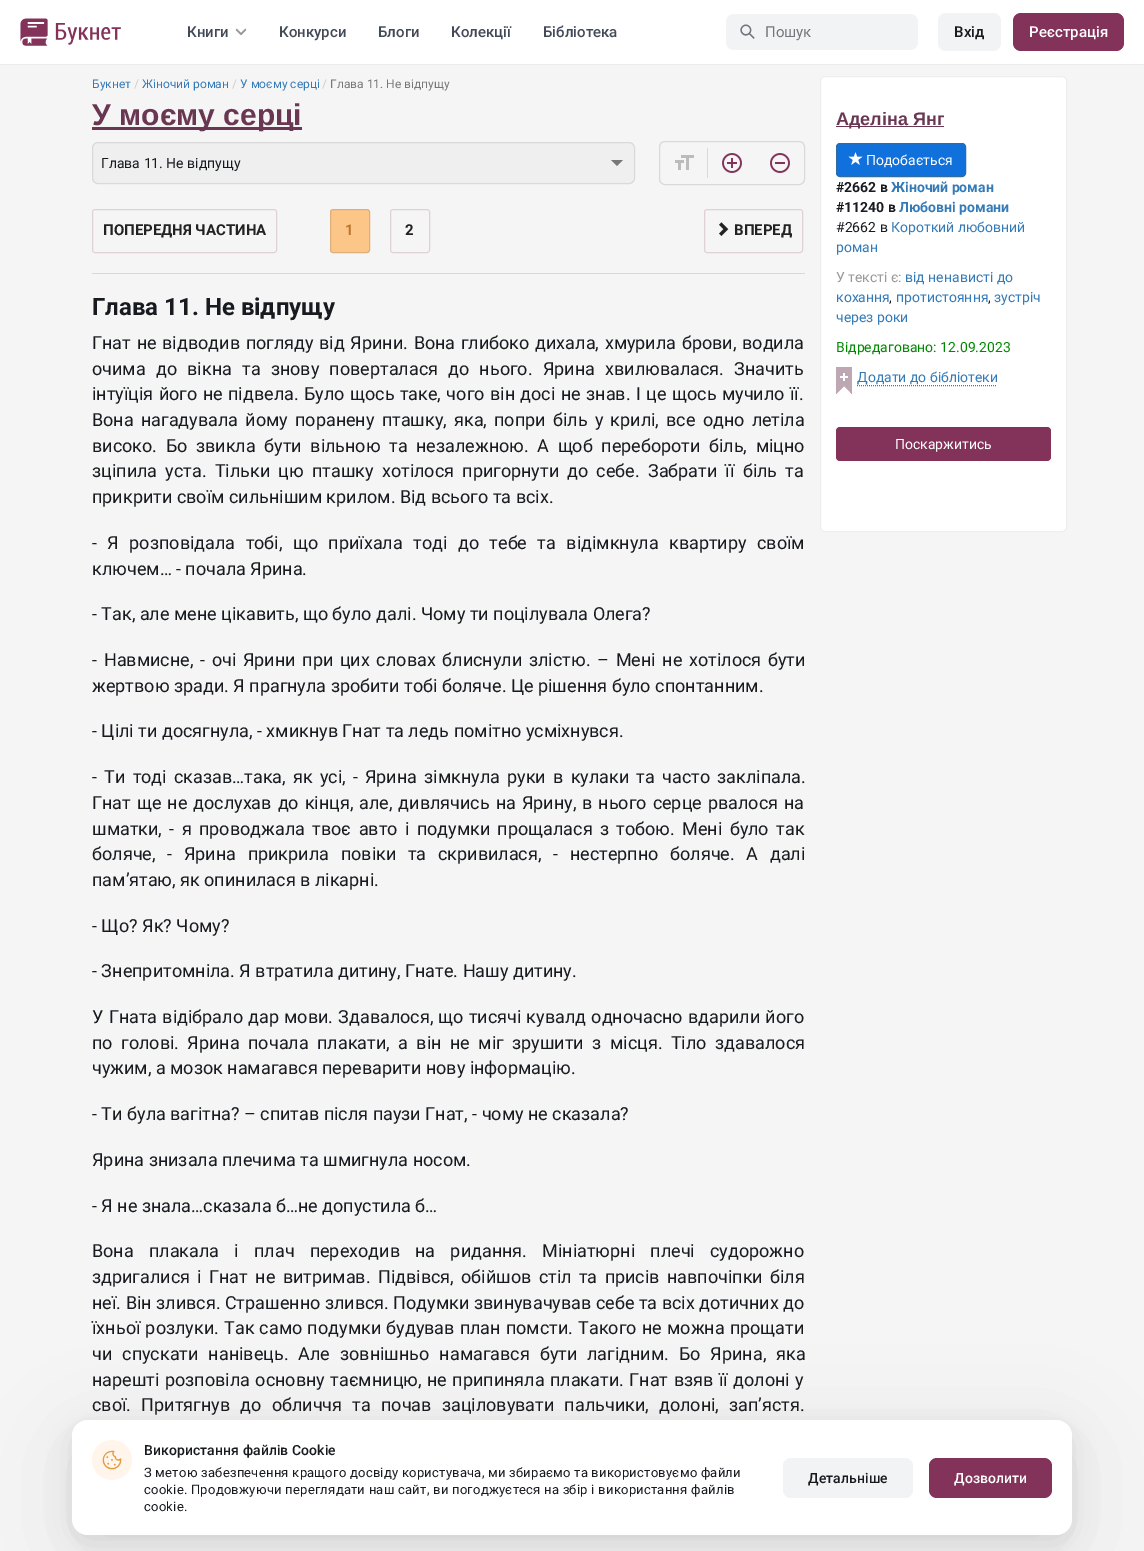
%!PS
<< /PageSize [1144 1551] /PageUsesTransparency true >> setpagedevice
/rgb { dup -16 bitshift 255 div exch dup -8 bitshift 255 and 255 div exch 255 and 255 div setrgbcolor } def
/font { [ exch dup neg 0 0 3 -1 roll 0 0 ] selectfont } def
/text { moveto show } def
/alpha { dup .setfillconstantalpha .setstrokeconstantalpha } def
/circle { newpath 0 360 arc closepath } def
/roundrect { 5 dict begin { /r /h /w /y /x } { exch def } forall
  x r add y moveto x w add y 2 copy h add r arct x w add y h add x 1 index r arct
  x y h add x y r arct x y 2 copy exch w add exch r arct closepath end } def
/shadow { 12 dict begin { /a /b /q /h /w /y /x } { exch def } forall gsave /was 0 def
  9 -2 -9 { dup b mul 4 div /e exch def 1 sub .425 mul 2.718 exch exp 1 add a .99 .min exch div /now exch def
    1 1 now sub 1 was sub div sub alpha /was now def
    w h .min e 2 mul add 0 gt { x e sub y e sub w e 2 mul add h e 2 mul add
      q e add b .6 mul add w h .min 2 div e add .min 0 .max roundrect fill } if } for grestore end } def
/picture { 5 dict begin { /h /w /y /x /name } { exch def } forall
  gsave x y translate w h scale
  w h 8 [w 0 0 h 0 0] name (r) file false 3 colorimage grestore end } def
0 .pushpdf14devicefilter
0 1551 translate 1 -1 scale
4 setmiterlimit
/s1 { /Roboto-Medium 15 font 16#424957 rgb } def
/s2 { /Roboto-Regular 15 font 16#71747A rgb } def
/s3 { /Roboto-Regular 12 font 16#337AB7 rgb } def
/s4 { /Roboto-Regular 12 font 16#CCCCCC rgb } def
/s5 { /Roboto-Regular 12 font 16#777777 rgb } def
/s6 { /LiberationSans-Bold 30 font 16#6A3752 rgb } def
/s7 { /Roboto-Regular 14 font 16#171A1F rgb } def
/s8 { /Roboto-Bold 15 font 16#222222 rgb } def
/s9 { /Roboto-Bold 15 font 16#BB732C rgb } def
/s10 { /Roboto-Bold 24 font 16#171A1F rgb } def
/s11 { /Roboto-Regular 18 font 16#171A1F rgb } def
/s12 { /LiberationSans-Bold 18 font 16#6A3752 rgb } def
/s13 { /Roboto-Regular 14 font 16#FFFFFF rgb } def
/s14 { /Roboto-Bold 14 font 16#171A1F rgb } def
/s15 { /Roboto-Bold 14 font 16#337AB7 rgb } def
/s16 { /Roboto-Regular 14 font 16#337AB7 rgb } def
/s17 { /Roboto-Regular 14 font 16#999999 rgb } def
/s18 { /Roboto-Regular 14 font 16#008800 rgb } def
16#F5F5F5 rgb
0 0 1144 1551 rectfill
16#FFFFFF rgb
0 0 1144 64 rectfill
16#EBEBEB rgb
0 64 1144 1 rectfill
(pic1.raw) 20 18 101 28 picture
s1
(Книги) 187 37 text
(pic2.raw) 235 28 12 7 picture
(Конкурси) 279 37 text
(Блоги) 378 37 text
(Колекції) 451 37 text
(Бібліотека) 543 37 text
16#F2F3F5 rgb
726 14 192 36 8 roundrect fill
(pic3.raw) 740 24 15 15 picture
s2
(Пошук) 765 37 text
16#F2F3F5 rgb
938 13 63 38 8 roundrect fill
/Roboto-Medium 15 font
16#171A1F rgb
954 37 moveto 0.1 0 (Вхід) ashow
16#83325A rgb
1013 13 111 38 8 roundrect fill
16#FFFFFF rgb
1029 37 moveto 0.1 0 (Реєстрація) ashow
s3
(Букнет) 92 88 text
s4
(/) 134 88 text
s3
(Жіночий роман) 142 88 text
s4
(/) 232 88 text
s3
(У моєму серці) 240 88 text
s4
(/) 322 88 text
s5
(Глава 11. Не відпущу) 330 88 text
16#6A3752 rgb
92 127 210 3 rectfill
s6
(У моєму серці) 92 125 text
16#EFEFEF rgb
92.5 142.5 542 41 5.5 roundrect gsave fill grestore
16#D9D9D9 rgb
stroke
s7
(Глава 11. Не відпущу) 101 168 text
16#777777 rgb
611 160 moveto 623 160 lineto 617 166 lineto closepath fill
16#D9D9D9 rgb
659.5 141.5 145 43 5.5 roundrect stroke
(pic4.raw) 675 155 19 15 picture
707 148 1 30 rectfill
(pic5.raw) 722 153 20 20 picture
(pic6.raw) 770 153 20 20 picture
92 273 713 1 rectfill
16#E0D1D6 rgb
92.5 209.5 184 43 2.5 roundrect stroke
s8
(ПОПЕРЕДНЯ ЧАСТИНА) 103 235 text
16#FDC689 rgb
330.5 209.5 39 43 2.5 roundrect gsave fill grestore
16#DFAF7A rgb
stroke
s9
(1) 345 235 text
16#E0D1D6 rgb
390.5 209.5 39 43 2.5 roundrect stroke
s8
(2) 405 235 text
16#E0D1D6 rgb
704.5 209.5 98 43 2.5 roundrect stroke
(pic7.raw) 719 222 10 14 picture
s8
(ВПЕРЕД) 734 235 text
s10
(Глава 11. Не відпущу) 92 315 text
/Roboto-Regular 18 font
92 349 moveto 1.25 0 32 (Гнат не відводив погляду від Ярини. Вона глибоко дихала, хмурила брови, водила) widthshow
92 375 moveto 5.75 0 32 (очима до вікна та знову поверталася до нього. Ярина хвилювалася. Значить) widthshow
92 400 moveto 1 0 32 (інтуїція його не підвела. Було щось таке, чого він досі не знав. І це щось мучило її.) widthshow
92 426 moveto 2.75 0 32 (Вона нагадувала йому поранену пташку, яка, попри біль у крилі, все одно летіла) widthshow
92 452 moveto 4.1 0 32 (високо. Бо звикла бути вільною та незалежною. А щоб перебороти біль, міцно) widthshow
92 477 moveto 3.75 0 32 (зціпила уста. Тільки цю пташку хотілося пригорнути до себе. Забрати її біль та) widthshow
(прикрити своїм сильнішим крилом. Від всього та всіх.) 92 503 text
92 549 moveto 6 0 32 (- Я розповідала тобі, що приїхала тоді до тебе та відімкнула квартиру своїм) widthshow
(ключем… - почала Ярина.) 92 575 text
(- Так, але мене цікавить, що було далі. Чому ти поцілувала Олега?) 92 620 text
92 666 moveto 2.25 0 32 (- Навмисне, - очі Ярини при цих словах блиснули злістю. – Мені не хотілося бути) widthshow
(жертвою зради. Я прагнула зробити тобі боляче. Це рішення було спонтанним.) 92 692 text
(- Цілі ти досягнула, - хмикнув Гнат та ледь помітно усміхнувся.) 92 737 text
92 783 moveto 2.75 0 32 (- Ти тоді сказав…така, як усі, - Ярина зімкнула руки в кулаки та часто закліпала.) widthshow
92 809 moveto 1.5 0 32 (Гнат ще не дослухав до кінця, але, дивлячись на Ярину, в нього серце рвалося на) widthshow
92 835 moveto 2.9 0 32 (шматки, - я проводжала твоє авто і подумки прощалася з тобою. Мені було так) widthshow
92 860 moveto 7.25 0 32 (боляче, - Ярина прикрила повіки та скривилася, - нестерпно боляче. А далі) widthshow
(пам’ятаю, як опинилася в лікарні.) 92 886 text
(- Що? Як? Чому?) 92 932 text
(- Знепритомніла. Я втратила дитину, Гнате. Нашу дитину.) 92 977 text
92 1023 moveto 0.75 0 32 (У Гната відібрало дар мови. Здавалося, що тисячі кувалд одночасно вдарили його) widthshow
92 1049 moveto 4 0 32 (по голові. Ярина почала плакати, а він не міг зрушити з місця. Тіло здавалося) widthshow
(чужим, а мозок намагався переварити нову інформацію.) 92 1074 text
(- Ти була вагітна? – спитав після паузи Гнат, - чому не сказала?) 92 1120 text
(Ярина знизала плечима та шмигнула носом.) 92 1166 text
(- Я не знала…сказала б…не допустила б…) 92 1212 text
92 1257 moveto 10.75 0 32 (Вона плакала і плач переходив на ридання. Мініатюрні плечі судорожно) widthshow
92 1283 moveto 2.9 0 32 (здригалися і Гнат не витримав. Підвівся, обійшов стіл та присів навпочіпки біля) widthshow
(неї. Він злився. Страшенно злився. Подумки звинувачував себе та всіх дотичних до) 92 1309 text
92 1334 moveto 0.75 0 32 (їхньої розлуки. Так само подумки будував план помсти. Такого не можна прощати) widthshow
92 1360 moveto 5.5 0 32 (чи спускати нанівець. Але зовнішньо намагався бути лагідним. Бо Ярина, яка) widthshow
92 1386 moveto 1 0 32 (нарешті розповіла основну таємницю, не припиняла плакати. Гнат взяв її долоні у) widthshow
92 1411 moveto 5.75 0 32 (свої. Притягнув до обличчя та почав заціловувати пальчики, долоні, зап’ястя.) widthshow
16#FFFFFF rgb
820.5 76.5 246 455 4.5 roundrect gsave fill grestore
16#EEEEEE rgb
stroke
16#6A3752 rgb
836 126 108 1 rectfill
s12
(Аделіна Янг) 836 125 text
16#1070DC rgb
836.5 143.5 129 33 3.5 roundrect gsave fill grestore
16#2E6DA4 rgb
stroke
(pic8.raw) 848 152 15 13 picture
s13
(Подобається) 866 165 text
s14
(#2662 в) 836 192 text
s15
(Жіночий роман) 891 192 text
s14
(#11240 в) 836 212 text
s15
(Любовні романи) 899 212 text
s7
(#2662 в) 836 232 text
s16
(Короткий любовний) 891 232 text
(роман) 836 252 text
s17
(У тексті є:) 836 282 text
s16
(від ненависті до) 905 282 text
(кохання) 836 302 text
s7
(,) 889 302 text
s16
(протистояння) 896 302 text
s7
(,) 988 302 text
s16
(зустріч) 994 302 text
(через роки) 836 322 text
s18
(Відредаговано: 12.09.2023) 836 352 text
(pic9.raw) 836 367 16 27 picture
s16
(Додати до бібліотеки) 857 382 text
[1 1] 0 setdash
857 385.5 moveto 997 385.5 lineto stroke
16#83325A rgb
836 427 215 34 4 roundrect fill
s13
(Поскаржитись) 895 449 text
16#000000 rgb
76 1442 992 107 12 44 0.08 shadow
78 1434 988 103 10 14 0.12 shadow
16#FFFFFF rgb
72 1420 1000 115 16 roundrect fill
16#FFF5EA rgb
112 1460 20 circle fill
(pic10.raw) 102 1450 20 20 picture
/Roboto-Medium 14 font
16#171A1F rgb
144 1455 moveto 0.1 0 (Використання файлів Cookie) ashow
/Roboto-Regular 13 font
144 1477 moveto 0.25 0 (З метою забезпечення кращого досвіду користувача, ми збираємо та використовуємо файли) ashow
144 1494 moveto 0.25 0 (cookie. Продовжуючи переглядати наш сайт, ви погоджуєтеся на збір і використання файлів) ashow
144 1511 moveto 0.25 0 (cookie.) ashow
16#F2F3F5 rgb
783 1458 130 40 8 roundrect fill
/Roboto-Medium 14 font
16#171A1F rgb
808 1483 moveto 0.1 0 (Детальніше) ashow
16#83325A rgb
929 1458 123 40 8 roundrect fill
16#FFFFFF rgb
954 1483 moveto 0.1 0 (Дозволити) ashow
.poppdf14devicefilter showpage
